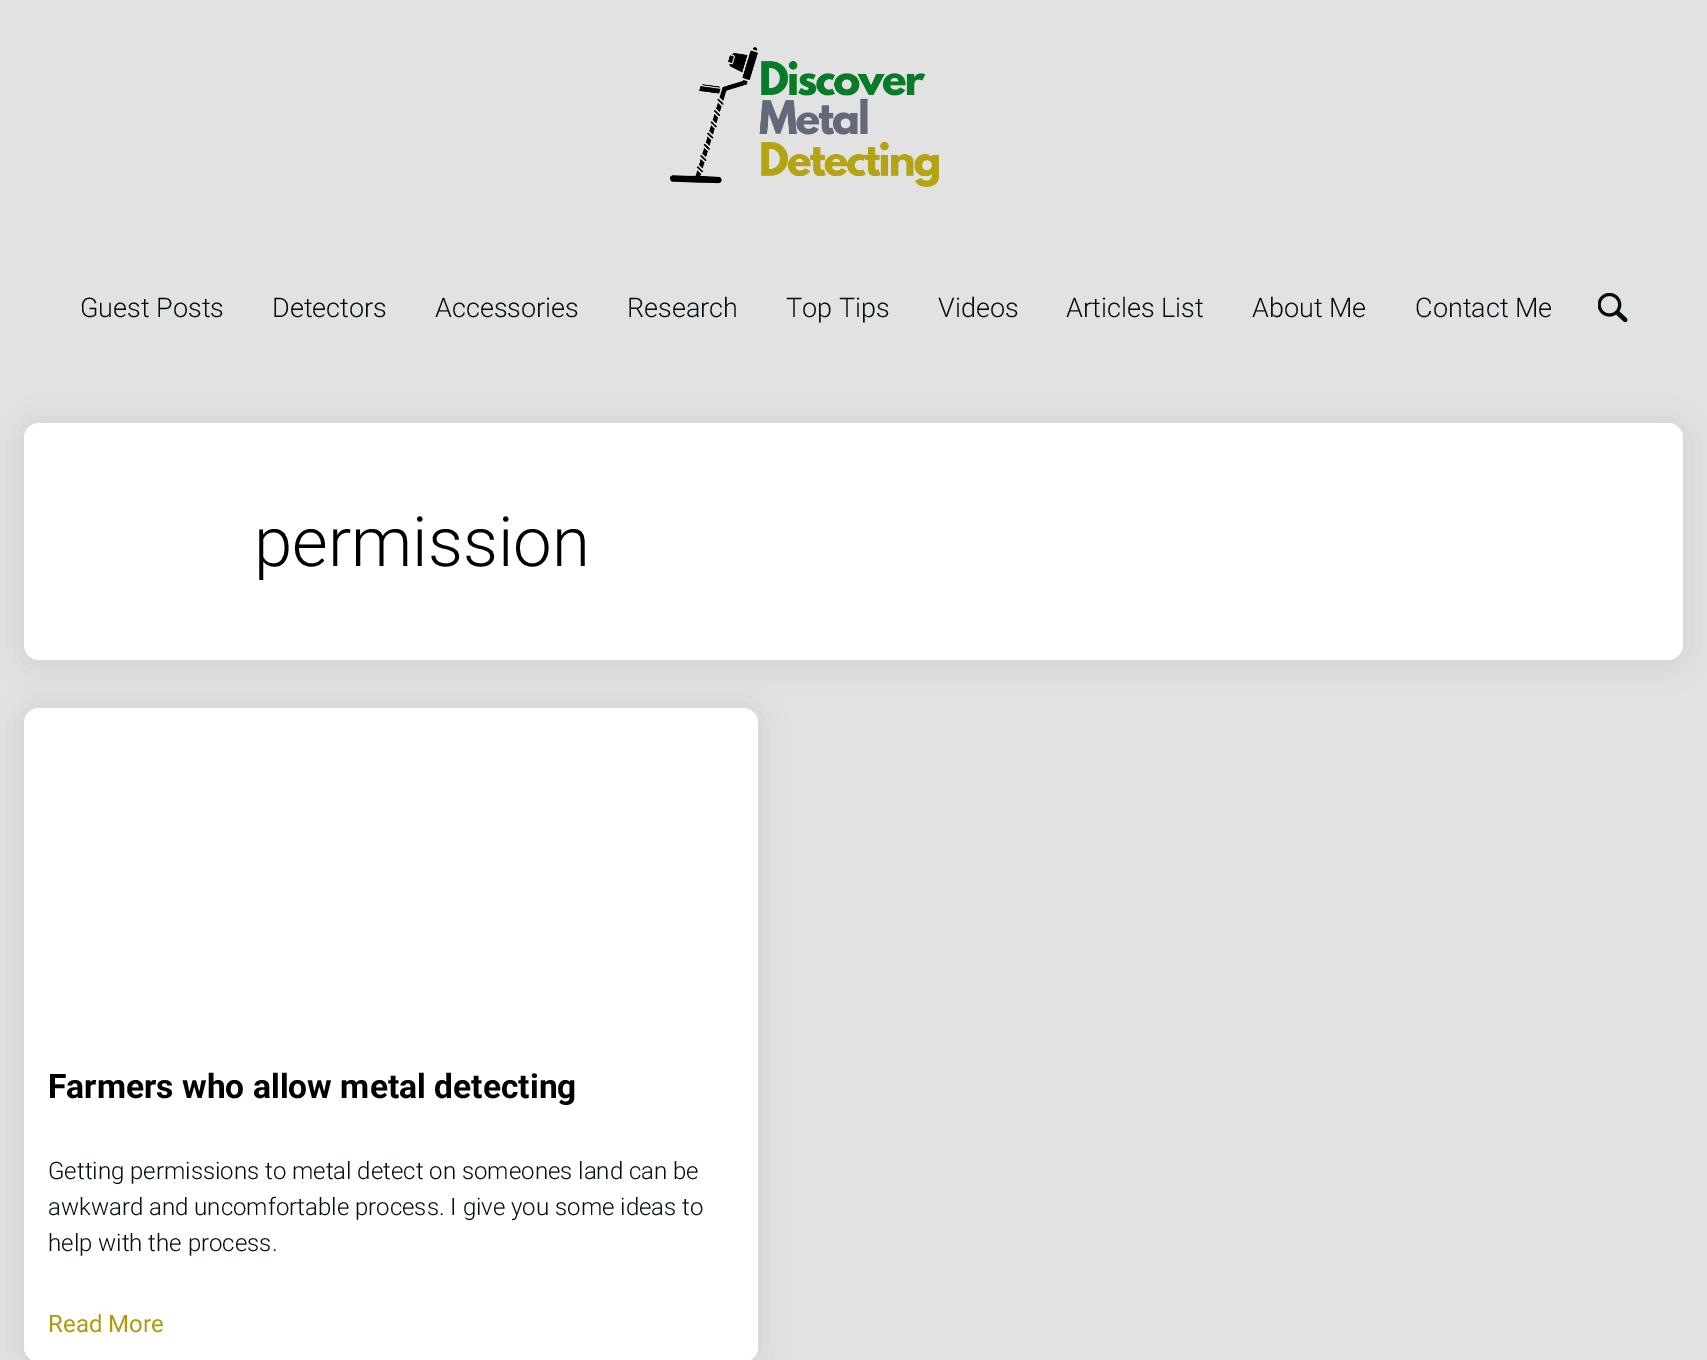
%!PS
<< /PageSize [1707 1360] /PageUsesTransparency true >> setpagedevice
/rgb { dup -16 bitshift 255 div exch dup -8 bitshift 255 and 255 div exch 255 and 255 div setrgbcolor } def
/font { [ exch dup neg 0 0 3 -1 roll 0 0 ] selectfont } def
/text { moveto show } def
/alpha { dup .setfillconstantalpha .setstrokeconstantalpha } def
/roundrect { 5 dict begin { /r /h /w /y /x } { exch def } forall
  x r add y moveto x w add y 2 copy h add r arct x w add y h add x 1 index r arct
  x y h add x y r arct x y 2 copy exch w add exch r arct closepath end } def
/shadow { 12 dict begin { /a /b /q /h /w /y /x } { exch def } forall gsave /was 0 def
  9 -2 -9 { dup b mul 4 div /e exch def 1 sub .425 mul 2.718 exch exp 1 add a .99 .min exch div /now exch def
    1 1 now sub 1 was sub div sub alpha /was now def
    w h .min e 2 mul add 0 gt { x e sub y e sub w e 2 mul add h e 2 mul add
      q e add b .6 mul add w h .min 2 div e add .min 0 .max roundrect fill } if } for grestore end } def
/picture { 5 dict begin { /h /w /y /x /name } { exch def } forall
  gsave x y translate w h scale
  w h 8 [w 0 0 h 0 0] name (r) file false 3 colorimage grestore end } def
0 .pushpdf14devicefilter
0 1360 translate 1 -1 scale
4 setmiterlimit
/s1 { /Roboto-Light 27 font 16#020E13 rgb } def
/s2 { /Roboto-Light 69 font 16#000000 rgb } def
/s3 { /Roboto-Bold 33.6 font 16#000000 rgb } def
/s4 { /Roboto-Light 24 font 16#020E13 rgb } def
/s5 { /Roboto-Regular 24 font 16#AF9A09 rgb } def
16#E2E2E2 rgb
0 0 1707 1360 rectfill
(pic1.raw) 670 47 269 140 picture
s1
(Guest Posts) 80 317 text
(Detectors) 272 317 text
(Accessories) 435 317 text
(Research) 627 317 text
(Top Tips) 786 317 text
(Videos) 938 317 text
(Articles List) 1066 317 text
(About Me) 1252 317 text
(Contact Me) 1415 317 text
(pic2.raw) 1598 293 30 30 picture
16#000000 rgb
24 426 1659 237 15 15 0.08 shadow
16#FFFFFF rgb
24 423 1659 237 15 roundrect fill
s2
(permission) 254 566 text
24 711 734 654 15 15 0.08 shadow
16#FFFFFF rgb
24 708 734 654 15 roundrect fill
s3
(Farmers who allow metal detecting) 48 1098 text
s4
(Getting permissions to metal detect on someones land can be) 48 1179 text
(awkward and uncomfortable process. I give you some ideas to) 48 1215 text
(help with the process.) 48 1251 text
s5
(Read More) 48 1332 text
.poppdf14devicefilter showpage
